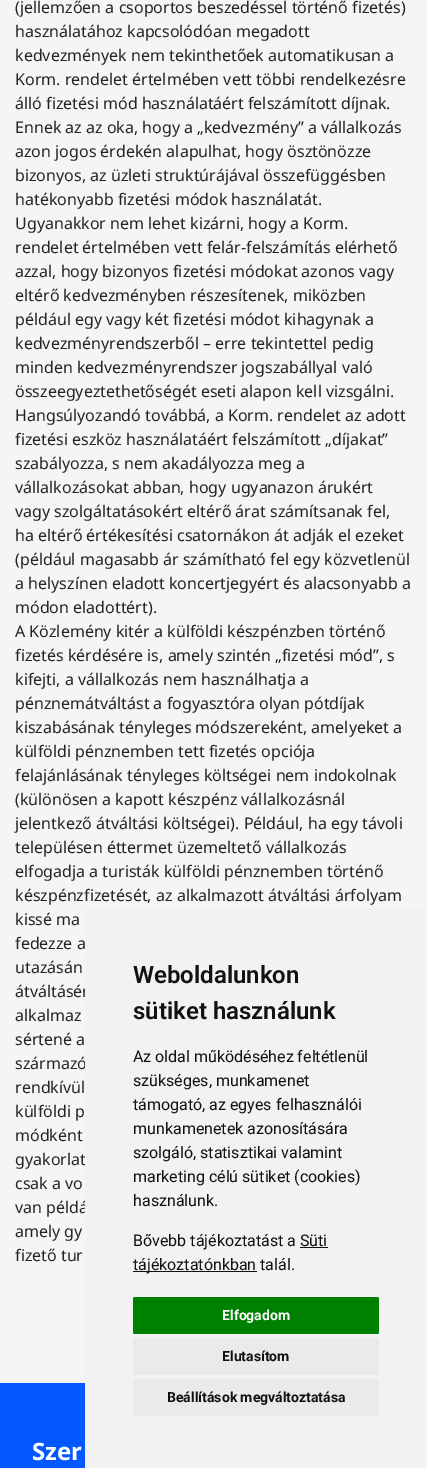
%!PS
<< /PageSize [427 1468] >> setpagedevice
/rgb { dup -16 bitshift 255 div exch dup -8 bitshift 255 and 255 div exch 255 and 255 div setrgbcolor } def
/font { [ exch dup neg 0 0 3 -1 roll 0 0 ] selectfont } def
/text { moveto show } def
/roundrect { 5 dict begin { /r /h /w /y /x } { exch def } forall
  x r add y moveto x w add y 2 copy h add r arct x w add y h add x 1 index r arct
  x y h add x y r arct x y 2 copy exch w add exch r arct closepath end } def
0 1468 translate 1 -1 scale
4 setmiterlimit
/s1 { /NotoSans-Regular 16 font 16#212529 rgb } def
/s2 { /Roboto-SemiBold 24 font 16#111111 rgb } def
/s3 { /Roboto-Regular 16 font 16#111111 rgb } def
/s4 { /Roboto-Bold 14 font 16#FFFFFF rgb } def
/s5 { /Roboto-Bold 14 font 16#111111 rgb } def
/s6 { /NotoSans-Bold 24 font 16#FFFFFF rgb } def
16#F5F5F5 rgb
0 0 427 1468 rectfill
s1
(\(jellemzően a csoportos beszedéssel történő fizetés\)) 15 13 text
(használatához kapcsolódóan megadott) 15 37 text
(kedvezmények nem tekinthetőek automatikusan a) 15 61 text
(Korm. rendelet értelmében vett többi rendelkezésre) 15 85 text
(álló fizetési mód használatáért felszámított díjnak.) 15 109 text
(Ennek az az oka, hogy a „kedvezmény” a vállalkozás) 15 133 text
(azon jogos érdekén alapulhat, hogy ösztönözze) 15 157 text
(bizonyos, az üzleti struktúrájával összefüggésben) 15 181 text
(hatékonyabb fizetési módok használatát.) 15 205 text
(Ugyanakkor nem lehet kizárni, hogy a Korm.) 15 229 text
(rendelet értelmében vett felár-felszámítás elérhető) 15 253 text
(azzal, hogy bizonyos fizetési módokat azonos vagy) 15 277 text
(eltérő kedvezményben részesítenek, miközben) 15 301 text
(például egy vagy két fizetési módot kihagynak a) 15 325 text
(kedvezményrendszerből – erre tekintettel pedig) 15 349 text
(minden kedvezményrendszer jogszabállyal való) 15 373 text
(összeegyeztethetőségét eseti alapon kell vizsgálni.) 15 397 text
(Hangsúlyozandó továbbá, a Korm. rendelet az adott) 15 421 text
(fizetési eszköz használatáért felszámított „díjakat”) 15 445 text
(szabályozza, s nem akadályozza meg a) 15 469 text
(vállalkozásokat abban, hogy ugyanazon árukért) 15 493 text
(vagy szolgáltatásokért eltérő árat számítsanak fel,) 15 517 text
(ha eltérő értékesítési csatornákon át adják el ezeket) 15 541 text
(\(például magasabb ár számítható fel egy közvetlenül) 15 565 text
(a helyszínen eladott koncertjegyért és alacsonyabb a) 15 589 text
(módon eladottért\).) 15 613 text
(A Közlemény kitér a külföldi készpénzben történő) 15 637 text
(fizetés kérdésére is, amely szintén „fizetési mód”, s) 15 661 text
(kifejti, a vállalkozás nem használhatja a) 15 685 text
(pénznemátváltást a fogyasztóra olyan pótdíjak) 15 709 text
(kiszabásának tényleges módszereként, amelyeket a) 15 733 text
(külföldi pénznemben tett fizetés opciója) 15 757 text
(felajánlásának tényleges költségei nem indokolnak) 15 781 text
(\(különösen a kapott készpénz vállalkozásnál) 15 805 text
(jelentkező átváltási költségei\). Például, ha egy távoli) 15 829 text
(településen éttermet üzemeltető vállalkozás) 15 853 text
(elfogadja a turisták külföldi pénznemben történő) 15 877 text
(készpénzfizetését, az alkalmazott átváltási árfolyam) 15 901 text
(kissé ma) 15 925 text
(fedezze a) 15 949 text
(utazásán) 15 973 text
(átváltásér) 15 997 text
(alkalmaz) 15 1021 text
(sértené a) 15 1045 text
(származó) 15 1069 text
(rendkívül) 15 1093 text
(külföldi p) 15 1117 text
(módként) 15 1141 text
(gyakorlat) 15 1165 text
(csak a vo) 15 1189 text
(van példá) 15 1213 text
(amely gy) 15 1237 text
(fizető tur) 15 1261 text
16#F2F2F2 rgb
85 909 342 559 rectfill
s2
(Weboldalunkon) 133 983 text
(sütiket használunk) 133 1019 text
s3
(Az oldal működéséhez feltétlenül) 133 1062 text
(szükséges, munkamenet) 133 1086 text
(támogató, az egyes felhasználói) 133 1110 text
(munkamenetek azonosítására) 133 1134 text
(szolgáló, statisztikai valamint) 133 1158 text
(marketing célú sütiket \(cookies\)) 133 1182 text
(használunk.) 133 1206 text
(Bővebb tájékoztatást a Süti) 133 1246 text
133 1271 124 1 rectfill
(tájékoztatónkban talál.) 133 1270 text
300 1247 28 1 rectfill
16#008000 rgb
133 1297 246 37 2 roundrect fill
s4
(Elfogadom) 222 1320 text
16#EAEAEA rgb
133 1338 246 37 2 roundrect fill
s5
(Elutasítom) 222 1361 text
16#EAEAEA rgb
133 1379 246 37 2 roundrect fill
s5
(Beállítások megváltoztatása) 167 1402 text
16#0257FD rgb
0 1383 85 85 rectfill
s6
(Szer) 32 1460 text
showpage
